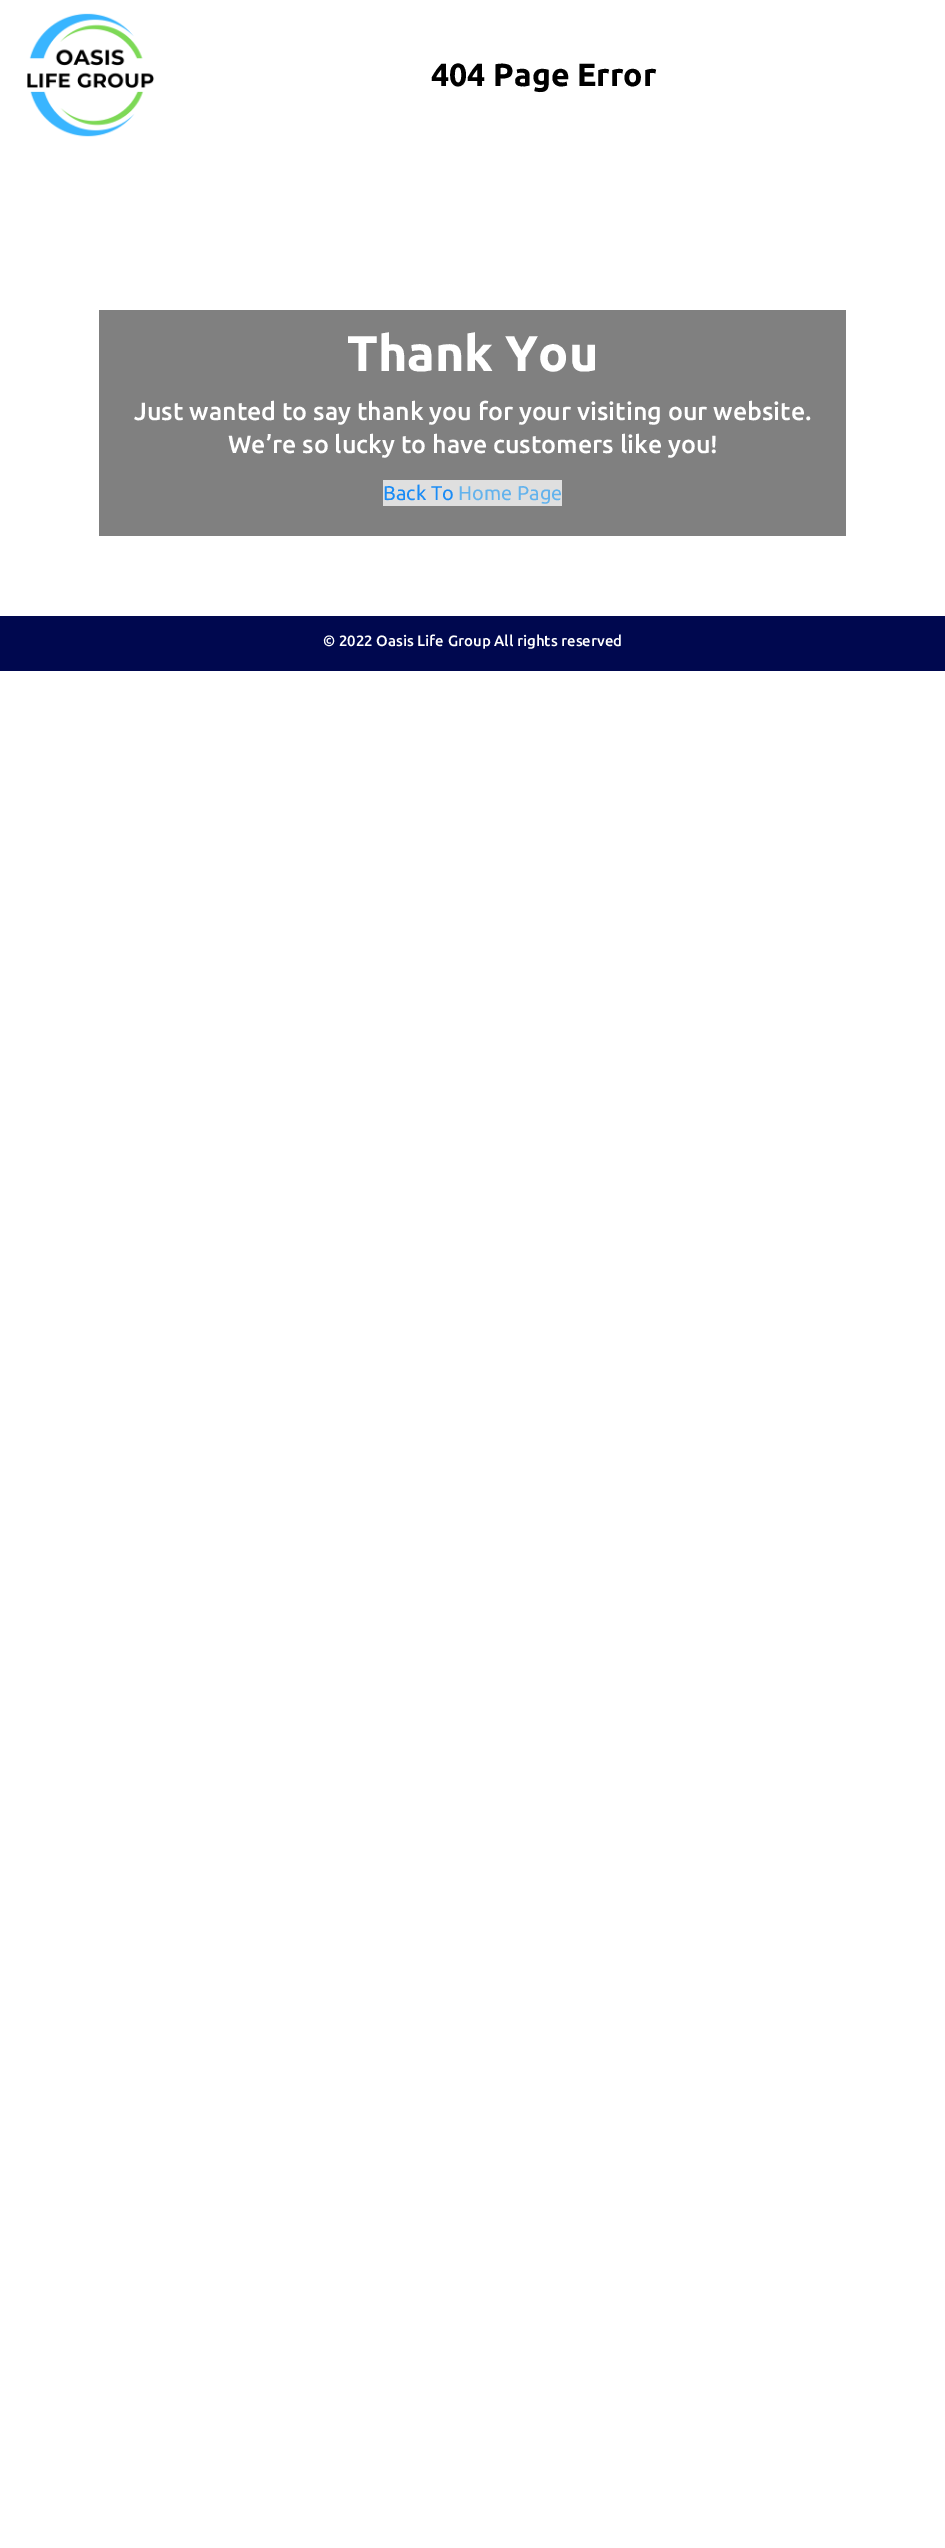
%!PS
<< /PageSize [945 2548] >> setpagedevice
/rgb { dup -16 bitshift 255 div exch dup -8 bitshift 255 and 255 div exch 255 and 255 div setrgbcolor } def
/font { [ exch dup neg 0 0 3 -1 roll 0 0 ] selectfont } def
/text { moveto show } def
/picture { 5 dict begin { /h /w /y /x /name } { exch def } forall
  gsave x y translate w h scale
  w h 8 [w 0 0 h 0 0] name (r) file false 3 colorimage grestore end } def
0 2548 translate 1 -1 scale
4 setmiterlimit
/s1 { /Ubuntu-Bold 32 font 16#000000 rgb } def
/s2 { /Ubuntu-Bold 50 font 16#FFFFFF rgb } def
/s3 { /Ubuntu-Medium 25 font 16#FFFFFF rgb } def
/s4 { /Ubuntu-Regular 20 font 16#188BF6 rgb } def
/s5 { /Ubuntu-Regular 20 font 16#63B3ED rgb } def
/s6 { /Ubuntu-Medium 15 font 16#FFFFFF rgb } def
16#FFFFFF rgb
0 0 945 2548 rectfill
(pic1.raw) 27 13 128 124 picture
s1
(404 Page Error) 431 86 text
16#808080 rgb
99 310 747 226 rectfill
s2
(Thank You) 347 371 text
s3
(Just wanted to say thank you for your visiting our website.) 134 420 text
(We’re so lucky to have customers like you!) 228 453 text
16#DFDFDF rgb
383 480 179 26 rectfill
s4
(Back To) 383 500 text
s5
(Home Page) 458 500 text
16#00084F rgb
0 616 945 55 rectfill
s6
(© 2022 Oasis Life Group All rights reserved) 323 646 text
showpage
